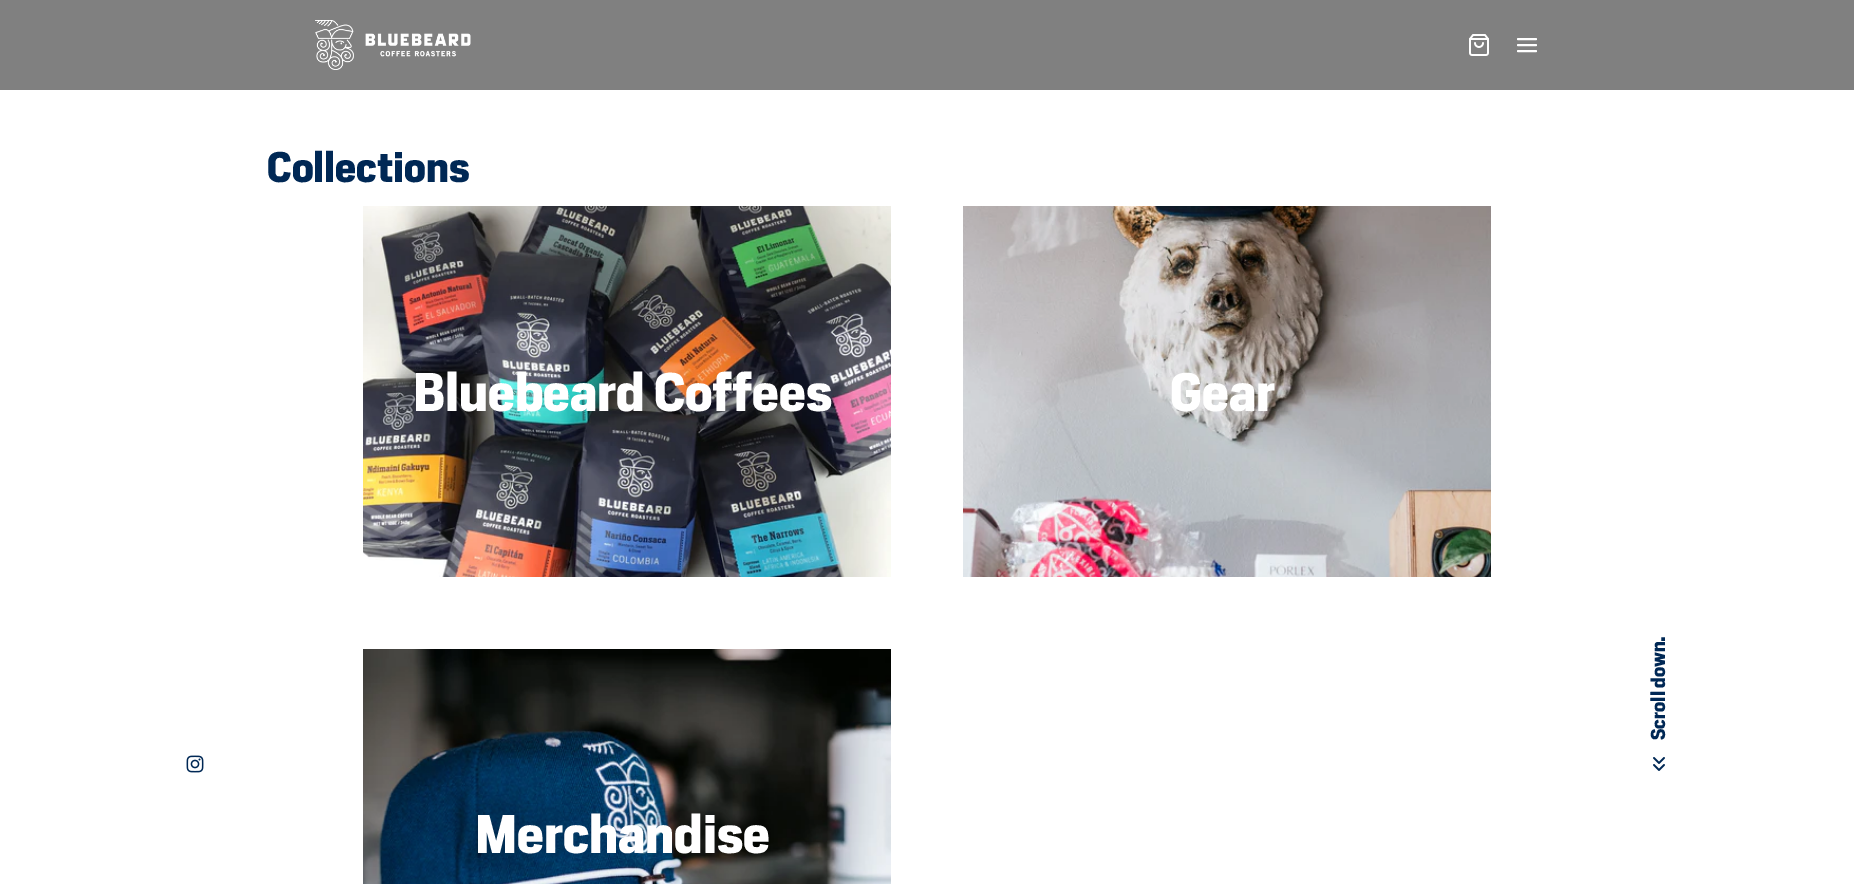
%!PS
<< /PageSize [1854 884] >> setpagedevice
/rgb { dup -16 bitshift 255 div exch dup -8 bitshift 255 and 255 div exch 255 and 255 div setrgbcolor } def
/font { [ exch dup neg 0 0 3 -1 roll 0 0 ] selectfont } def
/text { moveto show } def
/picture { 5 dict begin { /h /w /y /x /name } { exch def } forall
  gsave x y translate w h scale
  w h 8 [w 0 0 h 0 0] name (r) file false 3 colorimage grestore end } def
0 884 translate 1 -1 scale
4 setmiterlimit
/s1 { /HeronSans-Bold 40 font 16#002855 rgb } def
/s2 { /HeronSans-Bold 50.75 font 16#FFFFFF rgb } def
16#FFFFFF rgb
0 0 1854 884 rectfill
16#808080 rgb
0 0 1854 90 rectfill
(pic1.raw) 315 20 156 50 picture
(pic2.raw) 1469 34 20 22 picture
16#FFFFFF rgb
2 setlinewidth
1 setlinecap
1 setlinejoin
1518 45 moveto 1536 45 lineto 1518 39 moveto 1536 39 lineto 1518 51 moveto 1536 51 lineto stroke
s1
(Collections) 267 182 text
(pic3.raw) 363 206 528 371 picture
s2
(Bluebeard Coffees) 413 411 text
(pic4.raw) 963 206 528 371 picture
(Gear) 1170 411 text
(pic5.raw) 363 649 528 235 picture
(Merchandise) 475 853 text
/HeronSans-Bold 18.75 font
16#002855 rgb
gsave 1665 740 translate -90 rotate 0 0 moveto (Scroll down.) show grestore
(pic6.raw) 1653 757 12 14 picture
(pic7.raw) 186 755 18 18 picture
showpage
